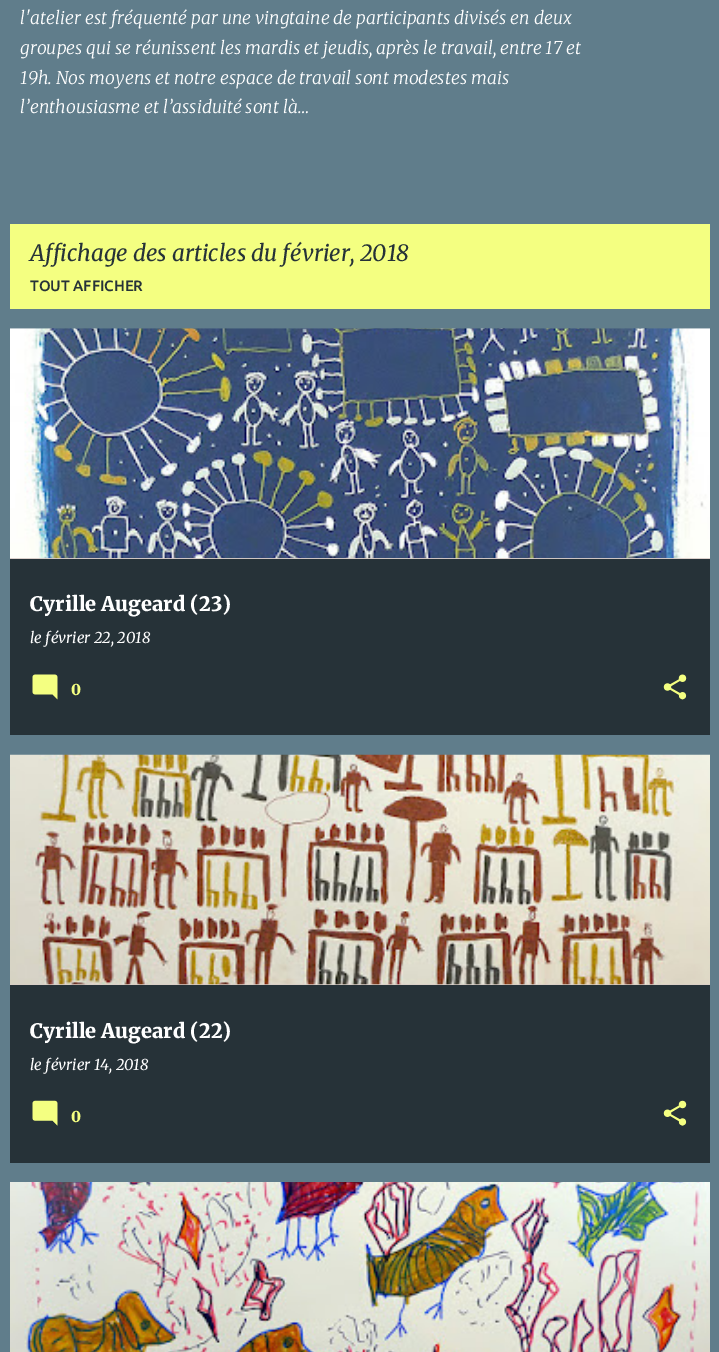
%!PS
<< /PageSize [719 1352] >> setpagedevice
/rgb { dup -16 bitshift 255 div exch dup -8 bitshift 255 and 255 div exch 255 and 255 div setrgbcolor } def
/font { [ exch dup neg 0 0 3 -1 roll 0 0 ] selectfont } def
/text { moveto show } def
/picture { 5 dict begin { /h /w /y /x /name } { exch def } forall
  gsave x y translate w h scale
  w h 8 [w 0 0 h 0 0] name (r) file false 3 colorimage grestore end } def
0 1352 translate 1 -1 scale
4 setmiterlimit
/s1 { /Merriweather-LightItalic 17.5 font 16#FFFFFF rgb } def
/s2 { /Merriweather-Italic 22.5 font 16#263238 rgb } def
/s3 { /Ubuntu-Medium 15 font 16#263238 rgb } def
/s4 { /Merriweather-Black 20 font 16#FFFFFF rgb } def
/s5 { /Merriweather-Italic 15 font 16#FFFFFF rgb } def
/s6 { /Merriweather-Black 15 font 16#F4FF81 rgb } def
16#607D8B rgb
0 0 719 1352 rectfill
s1
(l'atelier est fréquenté par une vingtaine de participants divisés en deux) 20 24 text
(groupes qui se réunissent les mardis et jeudis, après le travail, entre 17 et) 20 54 text
(19h. Nos moyens et notre espace de travail sont modestes mais) 20 84 text
(l’enthousiasme et l’assiduité sont là…) 20 113 text
16#F4FF81 rgb
10 224 700 85 rectfill
s2
(Affichage des articles du février, 2018) 30 261 text
s3
(TOUT AFFICHER) 30 291 text
10 559 700 176 rectfill
16#D9CDC7 rgb
10 558 700 1 rectfill
(pic1.raw) 10 328 700 231 picture
s4
(Cyrille Augeard \(23\)) 30 611 text
s5
(le février 22, 2018) 30 643 text
(pic2.raw) 32 674 26 26 picture
s6
(0) 71 695 text
(pic3.raw) 663 674 24 26 picture
16#263238 rgb
10 985 700 178 rectfill
16#D9CDC7 rgb
10 984 700 1 rectfill
(pic4.raw) 10 754 700 231 picture
s4
(Cyrille Augeard \(22\)) 30 1038 text
s5
(le février 14, 2018) 30 1070 text
(pic5.raw) 32 1100 26 26 picture
s6
(0) 71 1122 text
(pic6.raw) 663 1100 24 26 picture
(pic7.raw) 10 1182 700 170 picture
showpage
